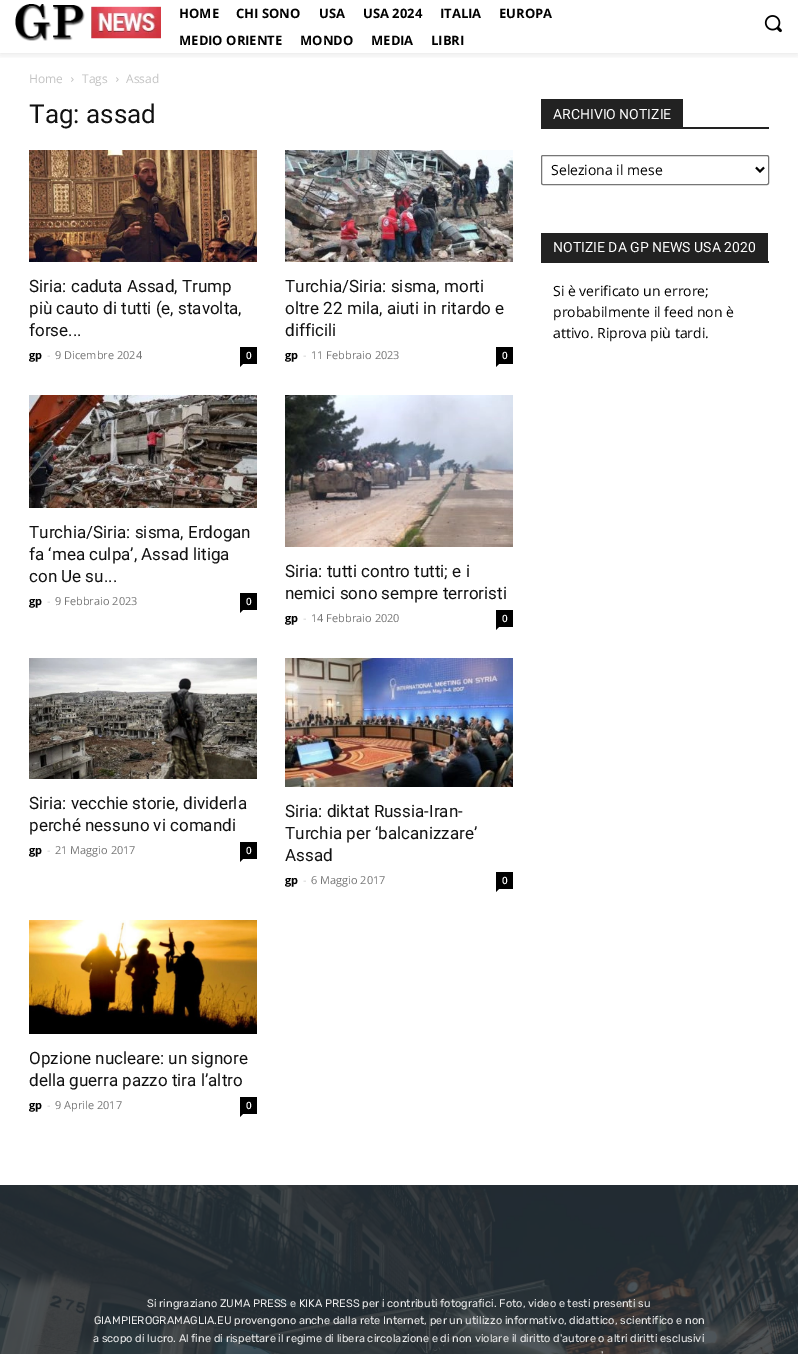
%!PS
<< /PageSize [798 1354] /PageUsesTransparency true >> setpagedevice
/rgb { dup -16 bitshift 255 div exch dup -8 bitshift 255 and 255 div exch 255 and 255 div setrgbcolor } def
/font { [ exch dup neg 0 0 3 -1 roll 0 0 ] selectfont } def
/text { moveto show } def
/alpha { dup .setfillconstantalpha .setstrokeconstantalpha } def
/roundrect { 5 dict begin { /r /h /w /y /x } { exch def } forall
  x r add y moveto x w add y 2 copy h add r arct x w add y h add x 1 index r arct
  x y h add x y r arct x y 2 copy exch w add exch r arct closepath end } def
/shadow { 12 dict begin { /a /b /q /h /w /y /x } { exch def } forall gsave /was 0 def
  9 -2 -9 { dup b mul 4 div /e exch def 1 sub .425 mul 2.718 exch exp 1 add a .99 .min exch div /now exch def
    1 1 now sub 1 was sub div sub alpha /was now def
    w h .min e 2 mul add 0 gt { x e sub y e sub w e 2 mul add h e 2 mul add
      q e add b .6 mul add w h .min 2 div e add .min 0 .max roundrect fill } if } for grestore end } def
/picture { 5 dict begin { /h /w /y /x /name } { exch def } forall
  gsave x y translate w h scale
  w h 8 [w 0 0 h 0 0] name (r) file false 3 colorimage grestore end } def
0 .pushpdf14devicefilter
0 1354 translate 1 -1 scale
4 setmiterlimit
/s1 { /OpenSans-Bold 13 font 16#000000 rgb } def
/s2 { /OpenSans-Regular 12 font 16#C3C3C3 rgb } def
/s3 { /Roboto-Regular 26 font 16#111111 rgb } def
/s4 { /Roboto-Regular 17 font 16#111111 rgb } def
/s5 { /OpenSans-Bold 11 font 16#000000 rgb } def
/s6 { /OpenSans-Regular 11 font 16#CCCCCC rgb } def
/s7 { /OpenSans-Regular 11 font 16#767676 rgb } def
/s8 { /OpenSans-SemiBold 10 font 16#FFFFFF rgb } def
/s9 { /Roboto-Regular 14 font 16#FFFFFF rgb } def
/s10 { /OpenSans-Regular 14 font 16#000000 rgb } def
/s11 { /Rubik-Regular 11 font 16#EAEAEA rgb } def
16#FFFFFF rgb
0 0 798 1354 rectfill
(pic1.raw) 15 4 146 37 picture
gsave
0 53 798 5 rectclip
16#000000 rgb
0 0 798 53 0 5 0.12 shadow
grestore
s1
(HOME) 179 18 text
(CHI SONO) 236 18 text
(USA) 319 18 text
(USA 2024) 363 18 text
(ITALIA) 440 18 text
(EUROPA) 499 18 text
(MEDIO ORIENTE) 179 45 text
(MONDO) 300 45 text
(MEDIA) 371 45 text
(LIBRI) 431 45 text
(pic2.raw) 764 15 18 18 picture
s2
(Home) 29 83 text
(pic3.raw) 71 77 3 5 picture
(Tags) 82 83 text
(pic3.raw) 116 77 3 5 picture
(Assad) 126 83 text
s3
(Tag: assad) 29 123 text
(pic4.raw) 29 150 228 112 picture
s4
(Siria: caduta Assad, Trump) 29 292 text
(più cauto di tutti \(e, stavolta,) 29 314 text
(forse...) 29 336 text
s5
(gp) 29 359 text
s6
(-) 47 359 text
s7
(9 Dicembre 2024) 55 359 text
16#000000 rgb
240 347 17 17 rectfill
s8
(0) 246 359 text
16#000000 rgb
240 364 moveto 243 364 lineto 240 367 lineto closepath fill
(pic5.raw) 285 150 228 112 picture
s4
(Turchia/Siria: sisma, morti) 285 292 text
(oltre 22 mila, aiuti in ritardo e) 285 314 text
(difficili) 285 336 text
s5
(gp) 285 359 text
s6
(-) 303 359 text
s7
(11 Febbraio 2023) 311 359 text
16#000000 rgb
496 347 17 17 rectfill
s8
(0) 502 359 text
16#000000 rgb
496 364 moveto 499 364 lineto 496 367 lineto closepath fill
(pic6.raw) 29 395 228 113 picture
s4
(Turchia/Siria: sisma, Erdogan) 29 538 text
(fa ‘mea culpa’, Assad litiga) 29 560 text
(con Ue su...) 29 582 text
s5
(gp) 29 605 text
s6
(-) 47 605 text
s7
(9 Febbraio 2023) 55 605 text
16#000000 rgb
240 593 17 17 rectfill
s8
(0) 246 605 text
16#000000 rgb
240 610 moveto 243 610 lineto 240 613 lineto closepath fill
(pic7.raw) 285 395 228 152 picture
s4
(Siria: tutti contro tutti; e i) 285 577 text
(nemici sono sempre terroristi) 285 599 text
s5
(gp) 285 622 text
s6
(-) 303 622 text
s7
(14 Febbraio 2020) 311 622 text
16#000000 rgb
496 610 17 17 rectfill
s8
(0) 502 622 text
16#000000 rgb
496 627 moveto 499 627 lineto 496 630 lineto closepath fill
(pic8.raw) 29 658 228 121 picture
s4
(Siria: vecchie storie, dividerla) 29 809 text
(perché nessuno vi comandi) 29 831 text
s5
(gp) 29 854 text
s6
(-) 47 854 text
s7
(21 Maggio 2017) 55 854 text
16#000000 rgb
240 842 17 17 rectfill
s8
(0) 246 854 text
16#000000 rgb
240 859 moveto 243 859 lineto 240 862 lineto closepath fill
(pic9.raw) 285 658 228 129 picture
s4
(Siria: diktat Russia-Iran-) 285 817 text
(Turchia per ‘balcanizzare’) 285 839 text
(Assad) 285 861 text
s5
(gp) 285 884 text
s6
(-) 303 884 text
s7
(6 Maggio 2017) 311 884 text
16#000000 rgb
496 872 17 17 rectfill
s8
(0) 502 884 text
16#000000 rgb
496 889 moveto 499 889 lineto 496 892 lineto closepath fill
(pic10.raw) 29 920 228 114 picture
s4
(Opzione nucleare: un signore) 29 1064 text
(della guerra pazzo tira l’altro) 29 1086 text
s5
(gp) 29 1109 text
s6
(-) 47 1109 text
s7
(9 Aprile 2017) 55 1109 text
16#000000 rgb
240 1097 17 17 rectfill
s8
(0) 246 1109 text
16#000000 rgb
240 1114 moveto 243 1114 lineto 240 1117 lineto closepath fill
16#222222 rgb
541 127 228 2 rectfill
541 99 142 28 rectfill
s9
(ARCHIVIO NOTIZIE) 553 119 text
16#767676 rgb
541.5 155.5 227 29 1.5 roundrect stroke
16#000000 rgb
2 setlinewidth
756 167.5 moveto 760 171.5 lineto 764 167.5 lineto stroke
s10
(Seleziona il mese) 551 175 text
16#222222 rgb
541 261 228 2 rectfill
541 233 227 28 rectfill
s9
(NOTIZIE DA GP NEWS USA 2020) 553 252 text
s10
(Si è verificato un errore;) 553 296 text
(probabilmente il feed non è) 553 317 text
(attivo. Riprova più tardi.) 553 338 text
16#232D35 rgb
0 1185 798 169 rectfill
(pic11.raw) 0 1185 798 169 picture
s11
(Si ringraziano ZUMA PRESS e KIKA PRESS per i contributi fotografici. Foto, video e testi presenti su) 147 1307 text
(GIAMPIEROGRAMAGLIA.EU provengono anche dalla rete Internet, per un utilizzo informativo, didattico, scientifico e non) 94 1324 text
(a scopo di lucro. Al fine di rispettare il regime di libera circolazione e di non violare il diritto d'autore o altri diritti esclusivi) 93 1342 text
(') 601 1359 text
.poppdf14devicefilter showpage
